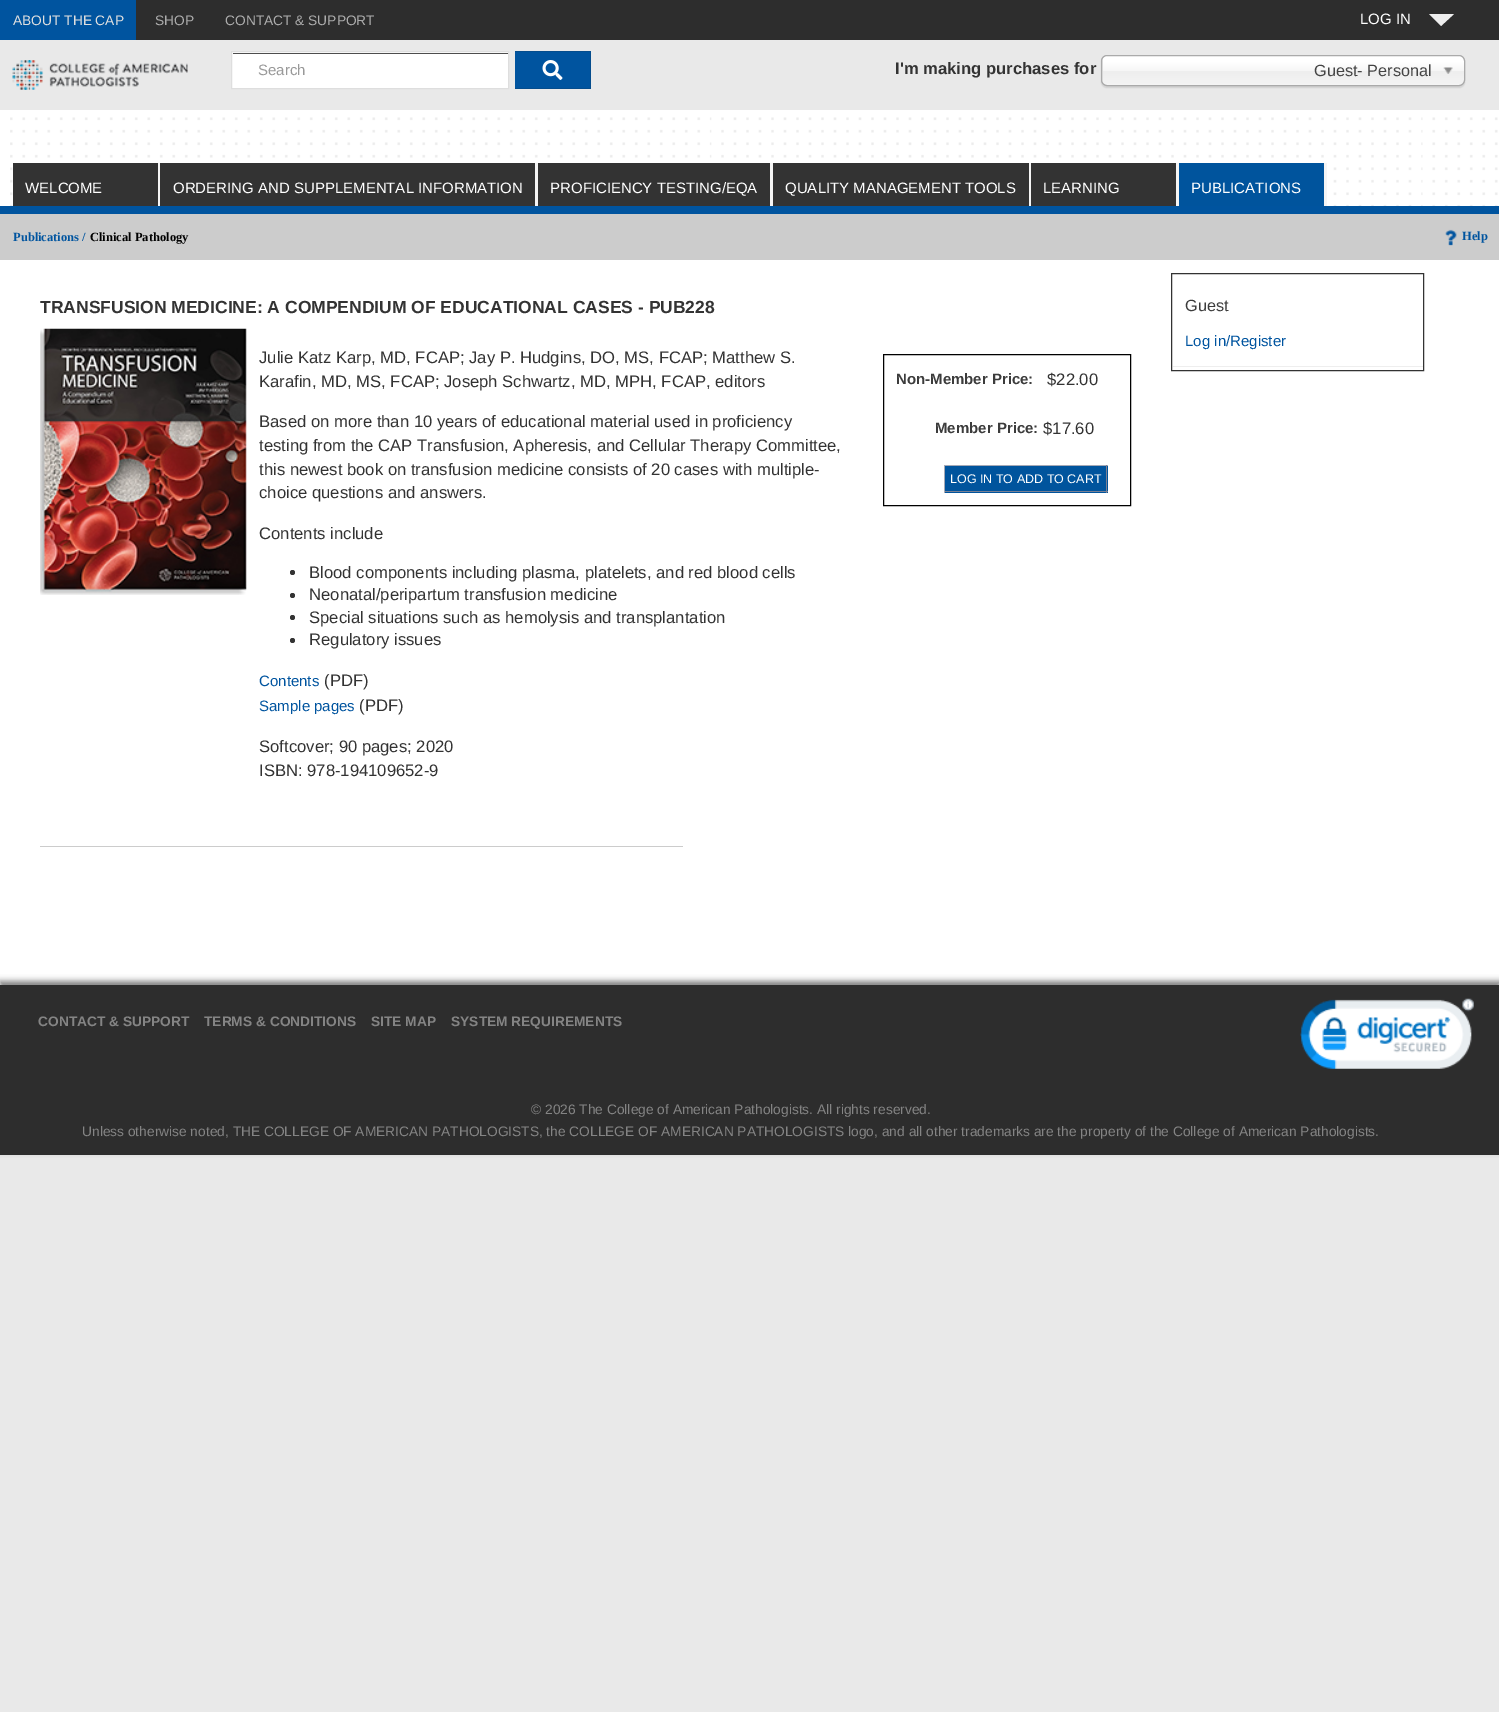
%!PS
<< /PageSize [1499 1712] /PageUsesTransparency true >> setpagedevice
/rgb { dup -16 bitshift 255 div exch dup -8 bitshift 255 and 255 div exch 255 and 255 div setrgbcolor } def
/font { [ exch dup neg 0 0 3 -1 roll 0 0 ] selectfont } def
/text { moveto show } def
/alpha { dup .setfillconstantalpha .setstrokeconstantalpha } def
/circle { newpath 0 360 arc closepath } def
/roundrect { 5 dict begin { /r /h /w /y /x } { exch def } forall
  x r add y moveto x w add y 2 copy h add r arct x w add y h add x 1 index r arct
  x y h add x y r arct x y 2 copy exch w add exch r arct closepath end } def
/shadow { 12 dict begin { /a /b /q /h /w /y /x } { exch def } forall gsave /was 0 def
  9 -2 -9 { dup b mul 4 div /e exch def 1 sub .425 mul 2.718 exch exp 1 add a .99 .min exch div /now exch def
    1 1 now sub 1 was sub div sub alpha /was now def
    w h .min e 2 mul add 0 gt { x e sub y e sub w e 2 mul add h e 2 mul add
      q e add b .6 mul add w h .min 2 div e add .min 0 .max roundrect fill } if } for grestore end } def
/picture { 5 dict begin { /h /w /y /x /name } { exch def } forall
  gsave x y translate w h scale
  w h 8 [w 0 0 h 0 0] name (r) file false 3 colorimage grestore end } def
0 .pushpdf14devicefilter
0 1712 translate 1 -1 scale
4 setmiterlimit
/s1 { /LiberationSans-Regular 13.75 font 16#DFDFDF rgb } def
/s2 { /LiberationSans-Regular 13.75 font 16#ACACAC rgb } def
/s3 { /LiberationSans-Regular 15 font 16#FFFFFF rgb } def
/s4 { /LiberationSans-Regular 15 font 16#999999 rgb } def
/s5 { /LiberationSans-Bold 16.65 font 16#333333 rgb } def
/s6 { /LiberationSans-Regular 16.25 font 16#444444 rgb } def
/s7 { /LiberationSerif-Bold 12.5 font 16#00549F rgb } def
/s8 { /LiberationSerif-Bold 12.5 font 16#000000 rgb } def
/s9 { /LiberationSans-Bold 17.5 font 16#333333 rgb } def
/s10 { /LiberationSans-Regular 16.65 font 16#333333 rgb } def
/s11 { /LiberationSans-Regular 15 font 16#00549F rgb } def
/s12 { /LiberationSans-Bold 15 font 16#3C3C3C rgb } def
/s13 { /LiberationSans-Regular 12.5 font 16#FFFFFF rgb } def
/s14 { /LiberationSans-Regular 16.25 font 16#3C3C3C rgb } def
/s15 { /LiberationSans-Bold 13.75 font 16#848484 rgb } def
/s16 { /LiberationSans-Regular 13.75 font 16#848484 rgb } def
16#E9E9E9 rgb
0 0 1499 1712 rectfill
16#2D2D2D rgb
136 0 1363 40 rectfill
16#00549F rgb
0 0 136 40 rectfill
s1
(ABOUT THE CAP) 13 25 text
s2
(SHOP) 155 25 text
(CONTACT & SUPPORT) 225 25 text
s3
(LOG IN) 1360 24 text
16#EEEEEE rgb
1429 14 moveto 1454 14 lineto 1441 26 lineto closepath fill
(pic1.raw) 12 60 176 30 picture
16#FFFFFF rgb
232 52 276 36 rectfill
16#4D4D4D rgb
233 53 275 1 rectfill
16#DEDEDE rgb
231.5 51.5 277 37 rectstroke
s4
(Search) 258 75 text
16#00549F rgb
515 51 76 38 rectfill
16#054D8D rgb
515 51 moveto 591 51 lineto 590 52 lineto 515 52 lineto closepath fill
591 51 moveto 591 89 lineto 590 87.5 lineto 590 52.5 lineto closepath fill
0.15 alpha
16#222426 rgb
591 89 moveto 515 89 lineto 515 88 lineto 590 88 lineto closepath fill
1 alpha
(pic2.raw) 542 60 21 20 picture
s5
(I'm making purchases for) 895 74 text
gsave
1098 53 moveto 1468 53 lineto 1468 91 lineto 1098 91 lineto closepath 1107 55 moveto 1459 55 lineto 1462.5 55 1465 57.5 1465 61 curveto 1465 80 lineto 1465 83.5 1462.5 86 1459 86 curveto 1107 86 lineto 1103.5 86 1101 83.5 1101 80 curveto 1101 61 lineto 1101 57.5 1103.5 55 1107 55 curveto closepath eoclip newpath
16#000000 rgb
1101 56 364 32 6 0.5 0.1 shadow
grestore
gsave 1103 56 361 29 5 roundrect clip newpath
<< /ShadingType 2 /ColorSpace /DeviceRGB /Coords [1283 56 1283 85] /Extend [true true] /Function << /FunctionType 3 /Domain [0 1] /Functions [<< /FunctionType 2 /Domain [0 1] /C0 [1 1 1] /C1 [1 1 1] /N 1 >> << /FunctionType 2 /Domain [0 1] /C0 [1 1 1] /C1 [0.965 0.965 0.965] /N 1 >> << /FunctionType 2 /Domain [0 1] /C0 [0.965 0.965 0.965] /C1 [0.933 0.933 0.933] /N 1 >> << /FunctionType 2 /Domain [0 1] /C0 [0.933 0.933 0.933] /C1 [0.957 0.957 0.957] /N 1 >>] /Bounds [0.2 0.5 0.52] /Encode [0 1 0 1 0 1 0 1] >> >> shfill grestore
16#AAAAAA rgb
1101.5 55.5 363 30 5.5 roundrect stroke
s6
(Guest- Personal) 1314 76 text
(pic3.raw) 1443 67 10 7 picture
16#FFFFFF rgb
0 110 1499 875 rectfill
(pic4.raw) 10 117 1488 89 picture
16#00549F rgb
0 206 1499 8 rectfill
16#333333 rgb
13 163 145 43 rectfill
16#F5F5F5 rgb
158 163 2 43 rectfill
s3
(WELCOME) 25 193 text
16#333333 rgb
160 163 375 43 rectfill
16#F5F5F5 rgb
535 163 3 43 rectfill
s3
(ORDERING AND SUPPLEMENTAL INFORMATION) 173 193 text
16#333333 rgb
538 163 232 43 rectfill
16#F5F5F5 rgb
770 163 3 43 rectfill
s3
(PROFICIENCY TESTING/EQA) 550 193 text
16#333333 rgb
773 163 256 43 rectfill
16#F5F5F5 rgb
1029 163 2 43 rectfill
s3
(QUALITY MANAGEMENT TOOLS) 785 193 text
16#333333 rgb
1031 163 145 43 rectfill
16#F5F5F5 rgb
1176 163 3 43 rectfill
s3
(LEARNING) 1043 193 text
16#00549D rgb
1179 163 145 43 rectfill
16#F5F5F5 rgb
1324 163 3 43 rectfill
s3
(PUBLICATIONS) 1191 193 text
16#CCCCCC rgb
0 214 1499 46 rectfill
s7
(Publications /) 13 241 text
s8
(Clinical Pathology) 90 241 text
(pic5.raw) 1445 229 12 17 picture
s7
(Help) 1462 240 text
s9
(TRANSFUSION MEDICINE: A COMPENDIUM OF EDUCATIONAL CASES - PUB228) 40 313 text
(pic6.raw) 40 328 207 267 picture
s10
(Julie Katz Karp, MD, FCAP; Jay P. Hudgins, DO, MS, FCAP; Matthew S.) 259 363 text
(Karafin, MD, MS, FCAP; Joseph Schwartz, MD, MPH, FCAP, editors) 259 387 text
(Based on more than 10 years of educational material used in proficiency) 259 427 text
(testing from the CAP Transfusion, Apheresis, and Cellular Therapy Committee,) 259 451 text
(this newest book on transfusion medicine consists of 20 cases with multiple-) 259 475 text
(choice questions and answers.) 259 498 text
(Contents include) 259 539 text
292.5 572.5 2.5 circle fill
(Blood components including plasma, platelets, and red blood cells) 309 578 text
292.5 595.5 2.5 circle fill
(Neonatal/peripartum transfusion medicine) 309 600 text
292.5 617.5 2.5 circle fill
(Special situations such as hemolysis and transplantation) 309 623 text
292.5 640.5 2.5 circle fill
(Regulatory issues) 309 645 text
s11
(Contents) 259 686 text
s10
(\(PDF\)) 324 686 text
s11
(Sample pages) 259 711 text
s10
(\(PDF\)) 359 711 text
(Softcover; 90 pages; 2020) 259 752 text
(ISBN: 978-194109652-9) 259 776 text
16#CCCCCC rgb
40 846 643 1 rectfill
16#000000 rgb
883.5 354.5 247 151 rectstroke
s12
(Non-Member Price:) 896 384 text
s10
($22.00) 1047 385 text
s12
(Member Price:) 935 433 text
s10
($17.60) 1043 434 text
16#00549D rgb
945 466 163 27 rectfill
16#A5A9B6 rgb
944 465 164 1 rectfill
16#7B8194 rgb
1106 465 1 28 rectfill
944 491 164 1 rectfill
16#A5A9B6 rgb
944 465 1 28 rectfill
s13
(LOG IN TO ADD TO CART) 950 483 text
16#333333 rgb
1171.5 273.5 252 97 rectstroke
s14
(Guest) 1185 311 text
s11
(Log in/Register) 1185 346 text
16#EEEEEE rgb
1173 366 250 1 rectfill
16#000000 rgb
0 981 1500 170 0 3 0.5 shadow
16#2D2D2D rgb
0 985 1499 170 rectfill
s15
(CONTACT & SUPPORT) 38 1026 text
(TERMS & CONDITIONS) 204 1026 text
(SITE MAP) 371 1026 text
(SYSTEM REQUIREMENTS) 451 1026 text
(pic7.raw) 1300 998 174 71 picture
s16
(© 2026 The College of American Pathologists. All rights reserved.) 531 1114 text
(Unless otherwise noted, THE COLLEGE OF AMERICAN PATHOLOGISTS, the COLLEGE OF AMERICAN PATHOLOGISTS logo, and all other trademarks are the property of the College of American Pathologists.) 82 1136 text
.poppdf14devicefilter showpage
